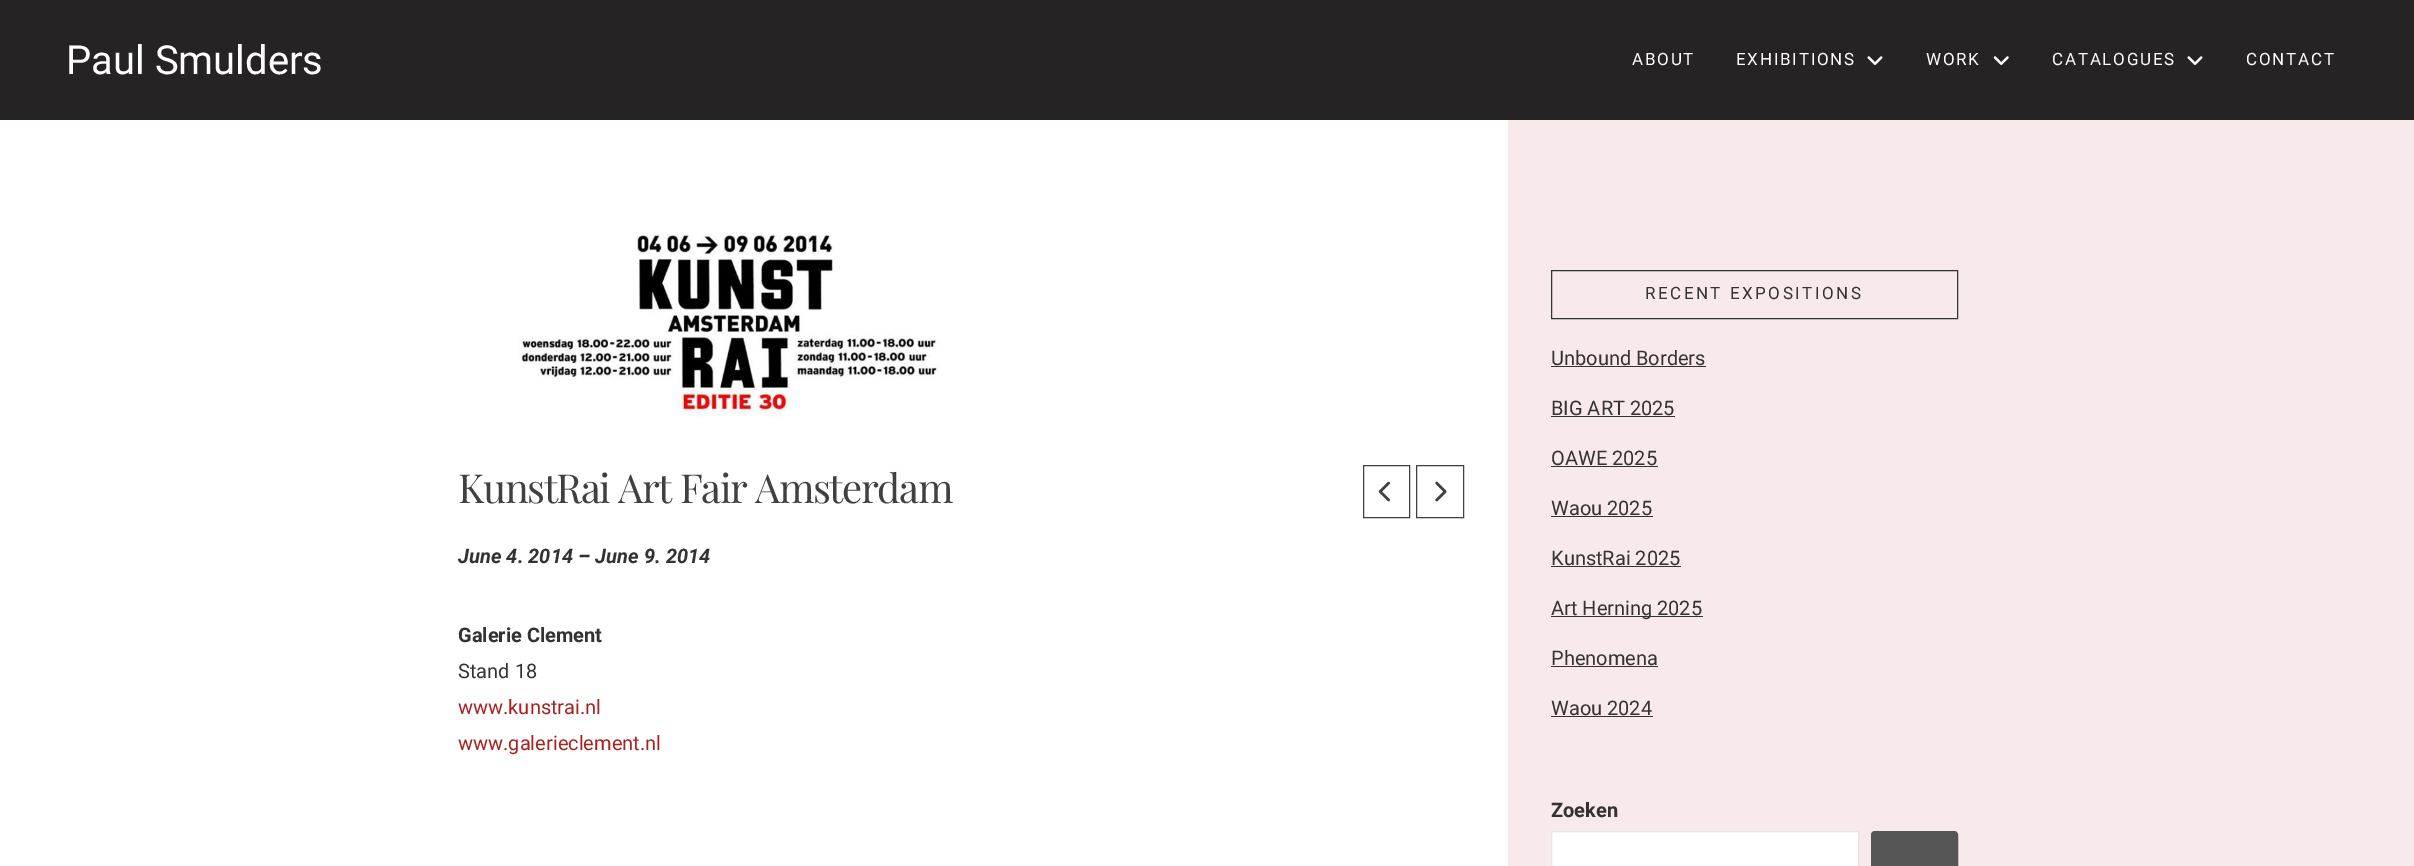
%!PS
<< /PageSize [2414 866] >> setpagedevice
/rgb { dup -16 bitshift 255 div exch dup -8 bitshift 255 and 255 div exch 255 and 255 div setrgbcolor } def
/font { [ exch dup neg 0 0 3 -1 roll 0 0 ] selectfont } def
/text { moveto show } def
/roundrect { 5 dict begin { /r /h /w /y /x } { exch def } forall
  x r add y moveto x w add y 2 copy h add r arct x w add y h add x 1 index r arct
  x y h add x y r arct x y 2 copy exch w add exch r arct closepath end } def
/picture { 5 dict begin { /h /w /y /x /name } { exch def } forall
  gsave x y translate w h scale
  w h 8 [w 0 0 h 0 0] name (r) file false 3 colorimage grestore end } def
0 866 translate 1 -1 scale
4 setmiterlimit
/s1 { /Roboto-Regular 40 font 16#FFFFFF rgb } def
/s2 { /Roboto-BoldItalic 20 font 16#333333 rgb } def
/s3 { /Roboto-Bold 20 font 16#333333 rgb } def
/s4 { /Roboto-Regular 20 font 16#333333 rgb } def
/s5 { /Roboto-Regular 20 font 16#A82222 rgb } def
16#F8EAEA rgb
0 0 2414 866 rectfill
16#252323 rgb
0 0 2414 120 rectfill
s1
(Paul Smulders) 66 74 text
/Roboto-Regular 17 font
1632 65 moveto 1.75 0 (ABOUT) ashow
1736 65 moveto 1.75 0 (EXHIBITIONS) ashow
(pic1.raw) 1867 56 16 9 picture
1926 65 moveto 1.75 0 (WORK) ashow
(pic2.raw) 1993 56 16 9 picture
2052 65 moveto 1.75 0 (CATALOGUES) ashow
(pic1.raw) 2187 56 16 9 picture
2246 65 moveto 1.75 0 (CONTACT) ashow
0 120 1508 746 rectfill
(pic3.raw) 519 232 420 185 picture
/PlayfairDisplay-Regular 40 font
16#404040 rgb
458 503 moveto -1.4 0 (KunstRai Art Fair Amsterdam) ashow
1363.5 465.5 46 52 rectstroke
(pic4.raw) 1378 481 12 21 picture
1416.5 465.5 47 52 rectstroke
(pic5.raw) 1435 481 12 21 picture
s2
(June 4. 2014 – June 9. 2014) 458 563 text
s3
(Galerie Clement) 458 642 text
s4
(Stand 18) 458 678 text
s5
(www.kunstrai.nl) 458 714 text
(www.galerieclement.nl) 458 750 text
16#333333 rgb
1551.5 270.5 406 48 rectstroke
/Roboto-Regular 17 font
1645 299 moveto 2.5 0 (RECENT EXPOSITIONS) ashow
s4
(Unbound Borders) 1551 365 text
1551 366 155 1 rectfill
(BIG ART 2025) 1551 415 text
1551 416 124 1 rectfill
(OAWE 2025) 1551 465 text
1551 466 107 1 rectfill
(Waou 2025) 1551 515 text
1551 516 102 1 rectfill
(KunstRai 2025) 1551 565 text
1551 566 130 1 rectfill
1551 616 152 1 rectfill
(Art Herning 2025) 1551 615 text
(Phenomena) 1551 665 text
1551 666 107 1 rectfill
(Waou 2024) 1551 715 text
1551 716 102 1 rectfill
s3
(Zoeken) 1551 817 text
16#FFFFFF rgb
1551.5 831.5 moveto 1858.5 831.5 lineto 1858.5 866.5 lineto 1551.5 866.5 lineto closepath gsave fill grestore
16#E6E6E6 rgb
stroke
16#555555 rgb
1871.5 831.5 86 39 3.5 roundrect gsave fill grestore
stroke
showpage
